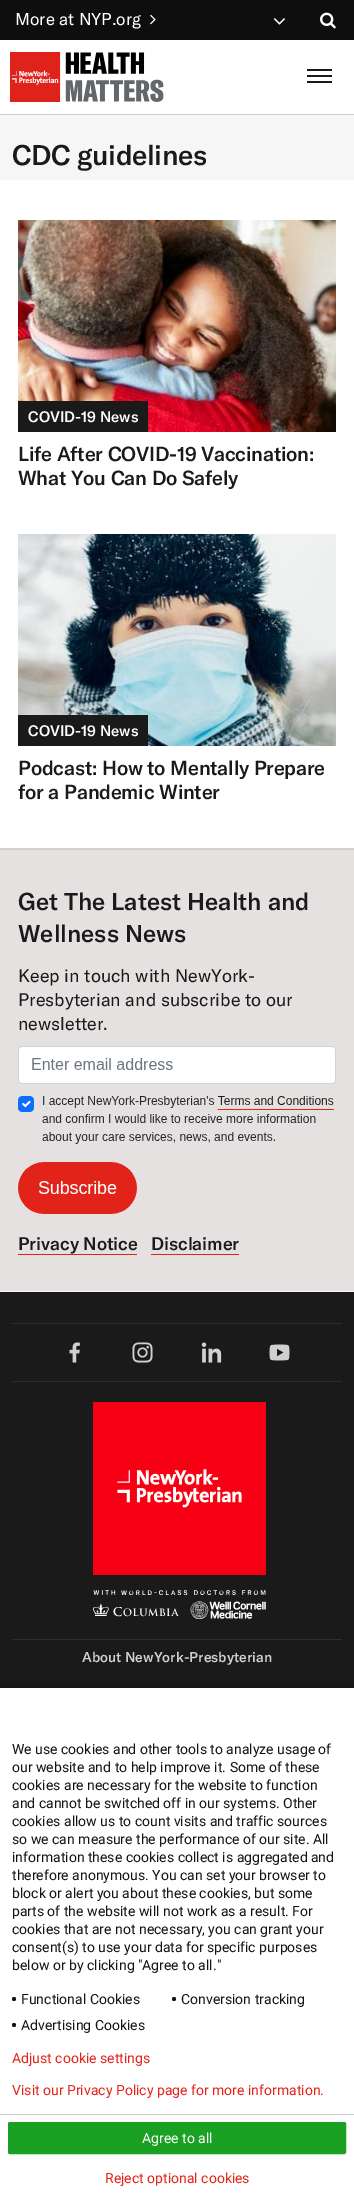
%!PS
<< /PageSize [354 2202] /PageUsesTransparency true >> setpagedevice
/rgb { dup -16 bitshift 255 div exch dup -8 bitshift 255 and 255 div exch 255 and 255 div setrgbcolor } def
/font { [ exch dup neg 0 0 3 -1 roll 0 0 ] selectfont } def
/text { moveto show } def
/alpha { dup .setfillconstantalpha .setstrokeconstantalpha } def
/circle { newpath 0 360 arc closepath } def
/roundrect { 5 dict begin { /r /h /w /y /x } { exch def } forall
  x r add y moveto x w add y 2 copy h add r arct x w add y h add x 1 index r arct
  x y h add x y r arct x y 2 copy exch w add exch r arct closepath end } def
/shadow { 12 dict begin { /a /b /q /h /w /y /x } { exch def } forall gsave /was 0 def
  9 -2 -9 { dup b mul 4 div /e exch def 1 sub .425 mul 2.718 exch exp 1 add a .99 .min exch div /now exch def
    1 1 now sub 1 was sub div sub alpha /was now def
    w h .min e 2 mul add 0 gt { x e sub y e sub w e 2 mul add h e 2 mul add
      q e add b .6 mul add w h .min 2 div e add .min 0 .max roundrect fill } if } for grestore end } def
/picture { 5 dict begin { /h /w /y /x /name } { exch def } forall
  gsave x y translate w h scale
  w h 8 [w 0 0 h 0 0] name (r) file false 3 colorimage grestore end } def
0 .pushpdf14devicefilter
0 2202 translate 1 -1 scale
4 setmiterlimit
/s1 { /GTAmerica-Regular 17 font 16#FFFFFF rgb } def
/s2 { /GTAmerica-Medium 15 font 16#FFFFFF rgb } def
/s3 { /GTAmerica-Medium 24 font 16#1A1A1A rgb } def
/s4 { /GTAmerica-Regular 18 font 16#1A1A1A rgb } def
/s5 { /GTAmerica-Medium 14 font 16#D0D0D1 rgb } def
/s6 { /Roboto-Regular 14 font 16#131313 rgb } def
/s7 { /Roboto-Regular 14 font 16#FFFFFF rgb } def
/s8 { /Roboto-Regular 14 font 16#E2231A rgb } def
16#FFFFFF rgb
0 0 354 2202 rectfill
16#0E0E0E rgb
0 0 354 40 rectfill
s1
(More at NYP.org) 15 25 text
(pic1.raw) 150 14 6 11 picture
(pic2.raw) 273 18 12 7 picture
(pic3.raw) 320 12 16 17 picture
16#D0D0D1 rgb
0 114 354 1 rectfill
(pic4.raw) 10 52 154 50 picture
16#1A1A1A rgb
307 69 25 2 rectfill
307 75 25 2 rectfill
307 81 25 2 rectfill
16#F6F6F6 rgb
0 115 354 65 rectfill
/GTAmerica-Medium 28 font
16#1A1A1A rgb
12 165 moveto -0.4 0 (CDC guidelines) ashow
(pic5.raw) 18 220 318 212 picture
18 401 130 31 rectfill
s2
(COVID-19 News) 28 422 text
/GTAmerica-Medium 20 font
16#1A1A1A rgb
18 461 moveto -0.25 0 (Life After COVID-19 Vaccination:) ashow
18 485 moveto -0.25 0 (What You Can Do Safely) ashow
(pic6.raw) 18 534 318 212 picture
18 715 130 31 rectfill
s2
(COVID-19 News) 28 736 text
/GTAmerica-Medium 20 font
16#1A1A1A rgb
18 775 moveto -0.25 0 (Podcast: How to Mentally Prepare) ashow
18 799 moveto -0.25 0 (for a Pandemic Winter) ashow
16#E6E1E1 rgb
0 850 354 441 rectfill
16#D0D0D1 rgb
0 848 354 2 rectfill
s3
(Get The Latest Health and) 18 910 text
(Wellness News) 18 942 text
s4
(Keep in touch with NewYork-) 18 982 text
(Presbyterian and subscribe to our) 18 1006 text
(newsletter.) 18 1030 text
(pic7.raw) 18 1046 318 168 picture
/GTAmerica-Medium 18 font
18 1250 moveto -0.1 0 (Privacy Notice) ashow
16#E2231A rgb
18 1254 119 1 rectfill
16#1A1A1A rgb
151 1250 moveto -0.1 0 (Disclaimer) ashow
16#E2231A rgb
151 1254 88 1 rectfill
16#1A1A1A rgb
0 1292 354 396 rectfill
16#F6F6F6 rgb
0 1291 354 1 rectfill
16#2C2D2E rgb
12 1323 330 1 rectfill
(pic8.raw) 69 1342 11 21 picture
(pic9.raw) 132 1342 21 21 picture
(pic10.raw) 201 1342 21 21 picture
(pic11.raw) 269 1344 21 17 picture
12 1381 330 1 rectfill
(pic12.raw) 93 1402 173 217 picture
12 1639 330 1 rectfill
s5
(About NewYork-Presbyterian) 82 1662 text
16#000000 rgb
-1 1685 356 516 0 2.5 0.14 shadow
16#FFFFFF rgb
0 1688 354 514 rectfill
s6
(We use cookies and other tools to analyze usage of) 12 1754 text
(our website and to help improve it. Some of these) 12 1772 text
(cookies are necessary for the website to function) 12 1790 text
(and cannot be switched off in our systems. Other) 12 1808 text
(cookies allow us to count visits and traffic sources) 12 1826 text
(so we can measure the performance of our site. All) 12 1844 text
(information these cookies collect is aggregated and) 12 1862 text
(therefore anonymous. You can set your browser to) 12 1880 text
(block or alert you about these cookies, but some) 12 1898 text
(parts of the website will not work as a result. For) 12 1916 text
(cookies that are not necessary, you can grant your) 12 1934 text
(consent\(s\) to use your data for specific purposes) 12 1952 text
(below or by clicking "Agree to all.") 12 1970 text
14 1999 2 circle fill
(Functional Cookies) 21 2004 text
174 1999 2 circle fill
(Conversion tracking) 181 2004 text
14 2025 2 circle fill
(Advertising Cookies) 21 2030 text
16#CCCCCC rgb
0 2114 354 1 rectfill
16#1AA023 rgb
8.5 2122.5 337 31 1.5 roundrect gsave fill grestore
stroke
s7
(Agree to all) 142 2143 text
s8
(Reject optional cookies) 105 2183 text
(Adjust cookie settings) 12 2063 text
(Visit our Privacy Policy page for more information.) 12 2095 text
.poppdf14devicefilter showpage
